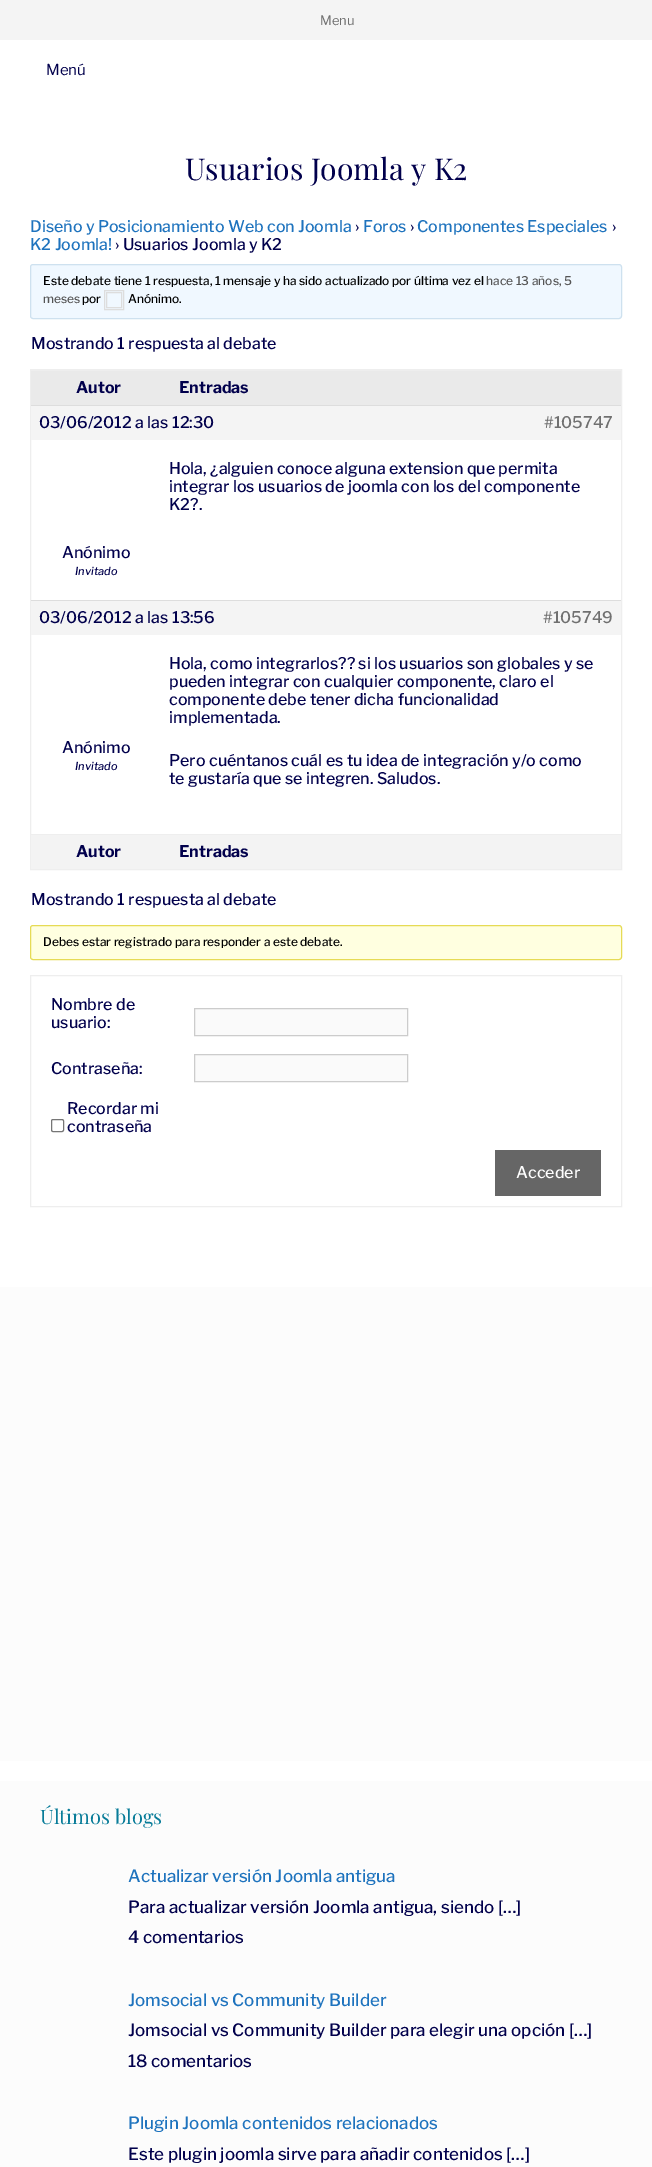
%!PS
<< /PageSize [652 2167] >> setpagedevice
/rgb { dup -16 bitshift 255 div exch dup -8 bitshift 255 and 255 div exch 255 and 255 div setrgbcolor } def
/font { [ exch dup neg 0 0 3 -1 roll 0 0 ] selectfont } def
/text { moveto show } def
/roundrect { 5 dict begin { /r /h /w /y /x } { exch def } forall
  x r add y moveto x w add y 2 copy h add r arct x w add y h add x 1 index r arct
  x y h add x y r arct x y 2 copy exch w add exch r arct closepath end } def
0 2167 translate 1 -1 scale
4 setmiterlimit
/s1 { /LibreFranklin-Regular 13 font 16#707070 rgb } def
/s2 { /LibreFranklin-Regular 15 font 16#01004C rgb } def
/s3 { /PlayfairDisplay-Regular 30 font 16#01004C rgb } def
/s4 { /LibreFranklin-Medium 16 font 16#1E73BE rgb } def
/s5 { /LibreFranklin-Medium 16 font 16#01004C rgb } def
/s6 { /LibreFranklin-Medium 12 font 16#000000 rgb } def
/s7 { /LibreFranklin-Medium 12 font 16#555555 rgb } def
/s8 { /LibreFranklin-Bold 16 font 16#01004C rgb } def
/s9 { /LibreFranklin-Medium 16 font 16#707070 rgb } def
/s10 { /LibreFranklin-MediumItalic 11 font 16#01004C rgb } def
/s11 { /LibreFranklin-Medium 16 font 16#FFFFFF rgb } def
/s12 { /PlayfairDisplay-Regular 20 font 16#097C99 rgb } def
/s13 { /LibreFranklin-Medium 17 font 16#1E73BE rgb } def
/s14 { /LibreFranklin-Medium 17 font 16#01004C rgb } def
16#FFFFFF rgb
0 0 652 2167 rectfill
16#F4F4F4 rgb
0 0 652 40 rectfill
s1
(Menu) 320 25 text
s2
(Menú) 46 75 text
s3
(Usuarios Joomla y K2) 185 180 text
s4
(Diseño y Posicionamiento Web con Joomla) 30 232 text
s5
(›) 355 232 text
s4
(Foros) 363 232 text
s5
(›) 410 232 text
s4
(Componentes Especiales) 417 232 text
s5
(›) 612 232 text
s4
(K2 Joomla!) 30 250 text
s5
(› Usuarios Joomla y K2) 115 250 text
16#F0F8FF rgb
30.5 264.5 591 54 2.5 roundrect gsave fill grestore
16#CEE1EF rgb
stroke
s6
(Este debate tiene 1 respuesta, 1 mensaje y ha sido actualizado por última vez el) 43 285 text
s7
(hace 13 años, 5) 486 285 text
(meses) 43 303 text
s6
(por) 82 303 text
16#DDDDDD rgb
104.5 290.5 19 19 rectstroke
106.5 292.5 15 15 rectstroke
s6
(Anónimo.) 128 303 text
s5
(Mostrando 1 respuesta al debate) 31 349 text
16#EEEEEE rgb
30.5 369.5 591 500 rectstroke
16#EAEAEA rgb
31 371 590 34 rectfill
16#EEEEEE rgb
31 370 590 1 rectfill
s8
(Autor) 76 393 text
(Entradas) 179 393 text
16#F4F4F4 rgb
31 406 590 34 rectfill
16#DDDDDD rgb
31 405 590 1 rectfill
s5
(03/06/2012 a las 12:30) 39 428 text
s9
(#105747) 544 428 text
s5
(Hola, ¿alguien conoce alguna extension que permita) 169 474 text
(integrar los usuarios de joomla con los del componente) 169 492 text
(K2?.) 169 510 text
(Anónimo) 62 558 text
s10
(Invitado) 75 575 text
16#F4F4F4 rgb
31 601 590 34 rectfill
16#DDDDDD rgb
31 600 590 1 rectfill
s5
(03/06/2012 a las 13:56) 39 623 text
s9
(#105749) 543 623 text
s5
(Anónimo) 62 753 text
s10
(Invitado) 75 770 text
s5
(Hola, como integrarlos?? si los usuarios son globales y se) 169 669 text
(pueden integrar con cualquier componente, claro el) 169 687 text
(componente debe tener dicha funcionalidad) 169 705 text
(implementada.) 169 723 text
(Pero cuéntanos cuál es tu idea de integración y/o como) 169 766 text
(te gustaría que se integren. Saludos.) 169 784 text
16#F3F3F3 rgb
31 835 590 34 rectfill
16#EEEEEE rgb
31 834 590 1 rectfill
s8
(Autor) 76 857 text
(Entradas) 179 857 text
s5
(Mostrando 1 respuesta al debate) 31 905 text
16#FFFFE0 rgb
30.5 925.5 591 34 2.5 roundrect gsave fill grestore
16#E6DB55 rgb
stroke
s6
(Debes estar registrado para responder a este debate.) 43 946 text
16#EEEEEE rgb
30.5 975.5 591 231 rectstroke
s5
(Nombre de) 51 1010 text
(usuario:) 51 1028 text
16#FAFAFA rgb
194.5 1008.5 moveto 407.5 1008.5 lineto 407.5 1035.5 lineto 194.5 1035.5 lineto closepath gsave fill grestore
16#CCCCCC rgb
stroke
s5
(Contraseña:) 51 1074 text
16#FAFAFA rgb
194.5 1054.5 moveto 407.5 1054.5 lineto 407.5 1081.5 lineto 194.5 1081.5 lineto closepath gsave fill grestore
16#CCCCCC rgb
stroke
16#767676 rgb
51.5 1119.5 12 12 1.5 roundrect stroke
s5
(Recordar mi) 67 1114 text
(contraseña) 67 1132 text
16#666666 rgb
495 1150 106 46 rectfill
s11
(Acceder) 516 1178 text
16#FCFCFC rgb
0 1287 652 474 rectfill
0 1781 652 386 rectfill
s12
(Últimos blogs) 40 1824 text
s13
(Actualizar versión Joomla antigua) 128 1882 text
s14
(Para actualizar versión Joomla antigua, siendo […]) 128 1913 text
(4 comentarios) 128 1943 text
s13
(Jomsocial vs Community Builder) 128 2006 text
s14
(Jomsocial vs Community Builder para elegir una opción […]) 128 2036 text
(18 comentarios) 128 2067 text
s13
(Plugin Joomla contenidos relacionados) 128 2129 text
s14
(Este plugin joomla sirve para añadir contenidos […]) 128 2160 text
showpage
